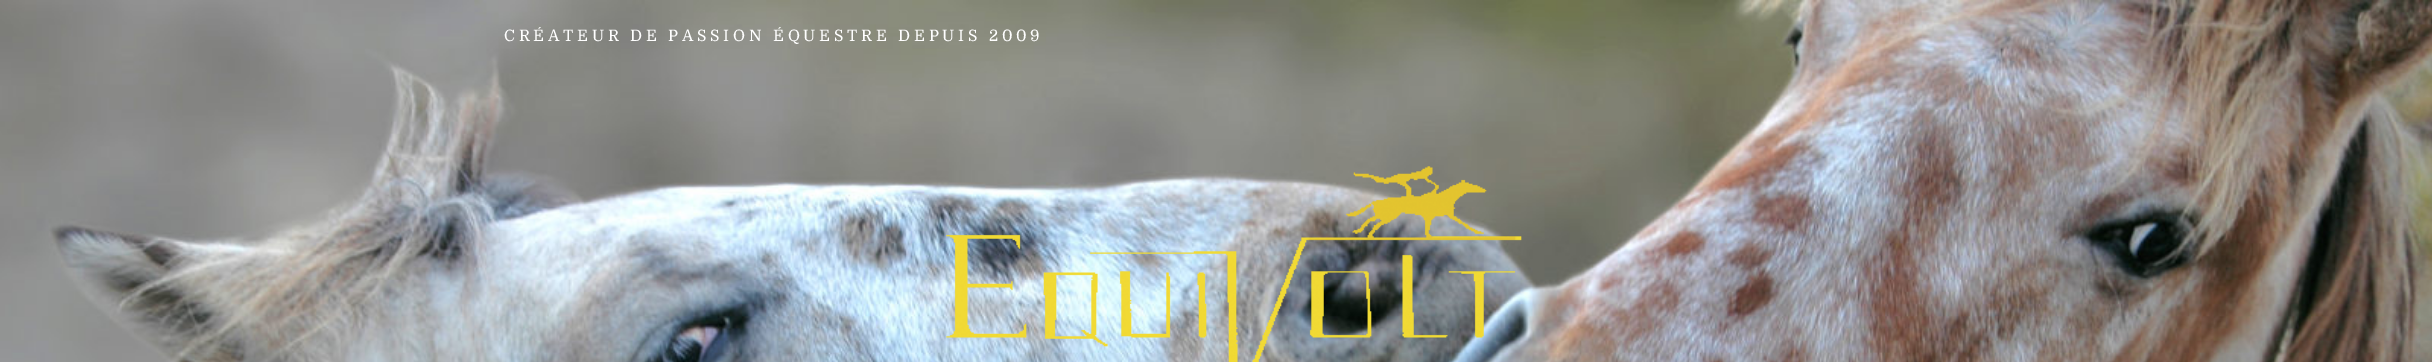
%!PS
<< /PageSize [2432 362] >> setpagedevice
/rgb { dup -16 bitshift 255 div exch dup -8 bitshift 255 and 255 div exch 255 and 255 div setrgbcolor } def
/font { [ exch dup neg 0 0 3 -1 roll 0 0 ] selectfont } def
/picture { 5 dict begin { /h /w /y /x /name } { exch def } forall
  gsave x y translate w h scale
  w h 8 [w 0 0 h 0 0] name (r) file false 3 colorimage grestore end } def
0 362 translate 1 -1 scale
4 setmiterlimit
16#FFFFFF rgb
0 0 2432 362 rectfill
(pic1.raw) 0 0 2432 362 picture
/Domine-Regular 15.75 font
504 41 moveto 3.75 0 (CRÉATEUR DE PASSION ÉQUESTRE DEPUIS 2009) ashow
(pic2.raw) 946 166 576 196 picture
showpage
